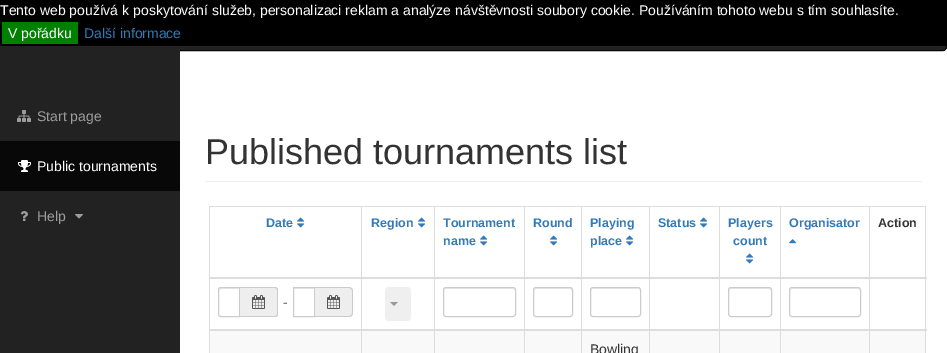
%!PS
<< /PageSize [947 353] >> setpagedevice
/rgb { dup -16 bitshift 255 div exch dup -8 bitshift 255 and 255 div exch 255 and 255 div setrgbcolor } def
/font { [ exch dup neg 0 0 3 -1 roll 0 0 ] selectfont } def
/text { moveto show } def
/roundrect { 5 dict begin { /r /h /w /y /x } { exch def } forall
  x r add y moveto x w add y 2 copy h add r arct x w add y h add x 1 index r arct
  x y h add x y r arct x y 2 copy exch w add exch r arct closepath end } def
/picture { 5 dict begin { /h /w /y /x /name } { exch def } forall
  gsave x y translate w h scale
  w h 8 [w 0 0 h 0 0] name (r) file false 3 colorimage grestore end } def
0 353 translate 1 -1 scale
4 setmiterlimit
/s1 { /LiberationSans-Regular 14 font 16#FFFFFF rgb } def
/s2 { /LiberationSans-Regular 14 font 16#337AB7 rgb } def
/s3 { /LiberationSans-Regular 14 font 16#9D9D9D rgb } def
/s4 { /LiberationSans-Regular 36 font 16#333333 rgb } def
/s5 { /LiberationSans-Bold 12.5 font 16#337AB7 rgb } def
/s6 { /LiberationSans-Bold 12.5 font 16#333333 rgb } def
/s7 { /LiberationSans-Regular 14 font 16#555555 rgb } def
/s8 { /LiberationSans-Regular 14 font 16#333333 rgb } def
16#FFFFFF rgb
0 0 947 353 rectfill
16#222222 rgb
0.5 0.5 946 50 3.5 roundrect gsave fill grestore
16#080808 rgb
stroke
16#000000 rgb
0 0 947 46 rectfill
s1
(Tento web používá k poskytování služeb, personalizaci reklam a analýze návštěvnosti soubory cookie. Používáním tohoto webu s tím souhlasíte.) 0 15 text
16#008000 rgb
2 22 76 22 rectfill
s1
(V pořádku) 8 38 text
s2
(Další informace) 84 38 text
16#222222 rgb
0 46 180 307 rectfill
(pic1.raw) 17 110 14 12 picture
s3
(Start page) 37 121 text
16#080808 rgb
0 141 180 50 rectfill
(pic2.raw) 18 160 13 12 picture
s1
(Public tournaments) 37 171 text
(pic3.raw) 20 211 8 10 picture
s3
(Help) 37 221 text
(pic4.raw) 75 214 8 5 picture
16#EEEEEE rgb
205 181 717 1 rectfill
s4
(Published tournaments list) 205 164 text
16#DDDDDD rgb
209 206 717 1 rectfill
925 206 1 147 rectfill
209 206 1 147 rectfill
s5
(Date) 266 227 text
(pic5.raw) 297 217 8 11 picture
(Region) 371 227 text
(pic5.raw) 418 217 8 11 picture
(Tournament) 443 227 text
(name) 443 245 text
(pic5.raw) 480 235 8 11 picture
(Round) 533 227 text
(pic5.raw) 550 235 8 11 picture
(Playing) 590 227 text
(place) 590 245 text
(pic5.raw) 626 235 8 11 picture
(Status) 658 227 text
(pic5.raw) 700 217 8 11 picture
(Players) 728 227 text
(count) 733 245 text
(pic5.raw) 746 253 8 11 picture
(Organisator) 789 227 text
(pic6.raw) 789 239 8 5 picture
16#F9F9F9 rgb
210 331 715 22 rectfill
16#DDDDDD rgb
361 206 1 147 rectfill
434 206 1 147 rectfill
524 206 1 147 rectfill
581 206 1 147 rectfill
649 206 1 147 rectfill
719 206 1 147 rectfill
780 206 1 147 rectfill
869 206 1 147 rectfill
209 277 718 2 rectfill
s6
(Action) 878 227 text
16#ECECEC rgb
221 289 moveto 239 289 lineto 239 288 lineto 227 288 lineto 223 288 219 286.5 219 291 curveto 219 290 220 289 221 289 curveto closepath fill
16#CCCCCC rgb
221 287.5 moveto 239.5 287.5 lineto 239.5 316.5 lineto 221 316.5 lineto 219.5 316.5 218.5 315.5 218.5 314 curveto 218.5 290 lineto 218.5 288.5 219.5 287.5 221 287.5 curveto closepath stroke
16#EEEEEE rgb
240 287 moveto 275 287 lineto 276.5 287 278 288.5 278 290 curveto 278 314 lineto 278 315.5 276.5 317 275 317 curveto 240 317 lineto closepath fill
16#CCCCCC rgb
240 287 moveto 275 287 lineto 276.5 287 278 288.5 278 290 curveto 278 314 lineto 278 315.5 276.5 317 275 317 curveto 240 317 lineto closepath 240 288 moveto 275 288 lineto 276 288 277 289 277 290 curveto 277 314 lineto 277 315 276 316 275 316 curveto 240 316 lineto closepath eofill
(pic7.raw) 252 295 13 14 picture
s7
(-) 283 307 text
16#ECECEC rgb
294 288 20 1 rectfill
16#CCCCCC rgb
293.5 287.5 21 29 rectstroke
16#EEEEEE rgb
315 287 moveto 349 287 lineto 351 287 353 289 353 291 curveto 353 313 lineto 353 315 351 317 349 317 curveto 315 317 lineto closepath fill
16#CCCCCC rgb
315 287 moveto 349 287 lineto 351 287 353 289 353 291 curveto 353 313 lineto 353 315 351 317 349 317 curveto 315 317 lineto closepath 315 288 moveto 349 288 lineto 350.5 288 352 289.5 352 291 curveto 352 313 lineto 352 314.5 350.5 316 349 316 curveto 315 316 lineto closepath eofill
(pic7.raw) 327 295 13 14 picture
16#EFEFEF rgb
385 287 26 34 4 roundrect fill
16#999999 rgb
390 302 moveto 398 302 lineto 394 306 lineto closepath fill
16#ECECEC rgb
446 289 moveto 513 289 lineto 514 289 515 290 515 291 curveto 515 285 505 288 502 288 curveto 457 288 lineto 454 288 444 285 444 291 curveto 444 290 445 289 446 289 curveto closepath fill
16#CCCCCC rgb
443.5 287.5 72 29 2.5 roundrect stroke
16#ECECEC rgb
536 289 moveto 570 289 lineto 571 289 572 290 572 291 curveto 572 286.5 568.5 288 564.5 288 curveto 541.5 288 lineto 537.5 288 534 286.5 534 291 curveto 534 290 535 289 536 289 curveto closepath fill
16#CCCCCC rgb
533.5 287.5 39 29 2.5 roundrect stroke
16#ECECEC rgb
593 289 moveto 638 289 lineto 639 289 640 290 640 291 curveto 640 286 634 288 630 288 curveto 600 288 lineto 597 288 591 286 591 291 curveto 591 290 592 289 593 289 curveto closepath fill
16#CCCCCC rgb
590.5 287.5 50 29 2.5 roundrect stroke
16#ECECEC rgb
731 289 moveto 769 289 lineto 770 289 771 290 771 291 curveto 771 286 766 288 763 288 curveto 737 288 lineto 734 288 729 286 729 291 curveto 729 290 730 289 731 289 curveto closepath fill
16#CCCCCC rgb
728.5 287.5 43 29 2.5 roundrect stroke
16#ECECEC rgb
792 289 moveto 858 289 lineto 859 289 860 290 860 291 curveto 860 285 851 288 847 288 curveto 803 288 lineto 799 288 790 285 790 291 curveto 790 290 791 289 792 289 curveto closepath fill
16#CCCCCC rgb
789.5 287.5 71 29 2.5 roundrect stroke
16#DDDDDD rgb
209 329 718 2 rectfill
s8
(Bowling) 590 354 text
showpage
